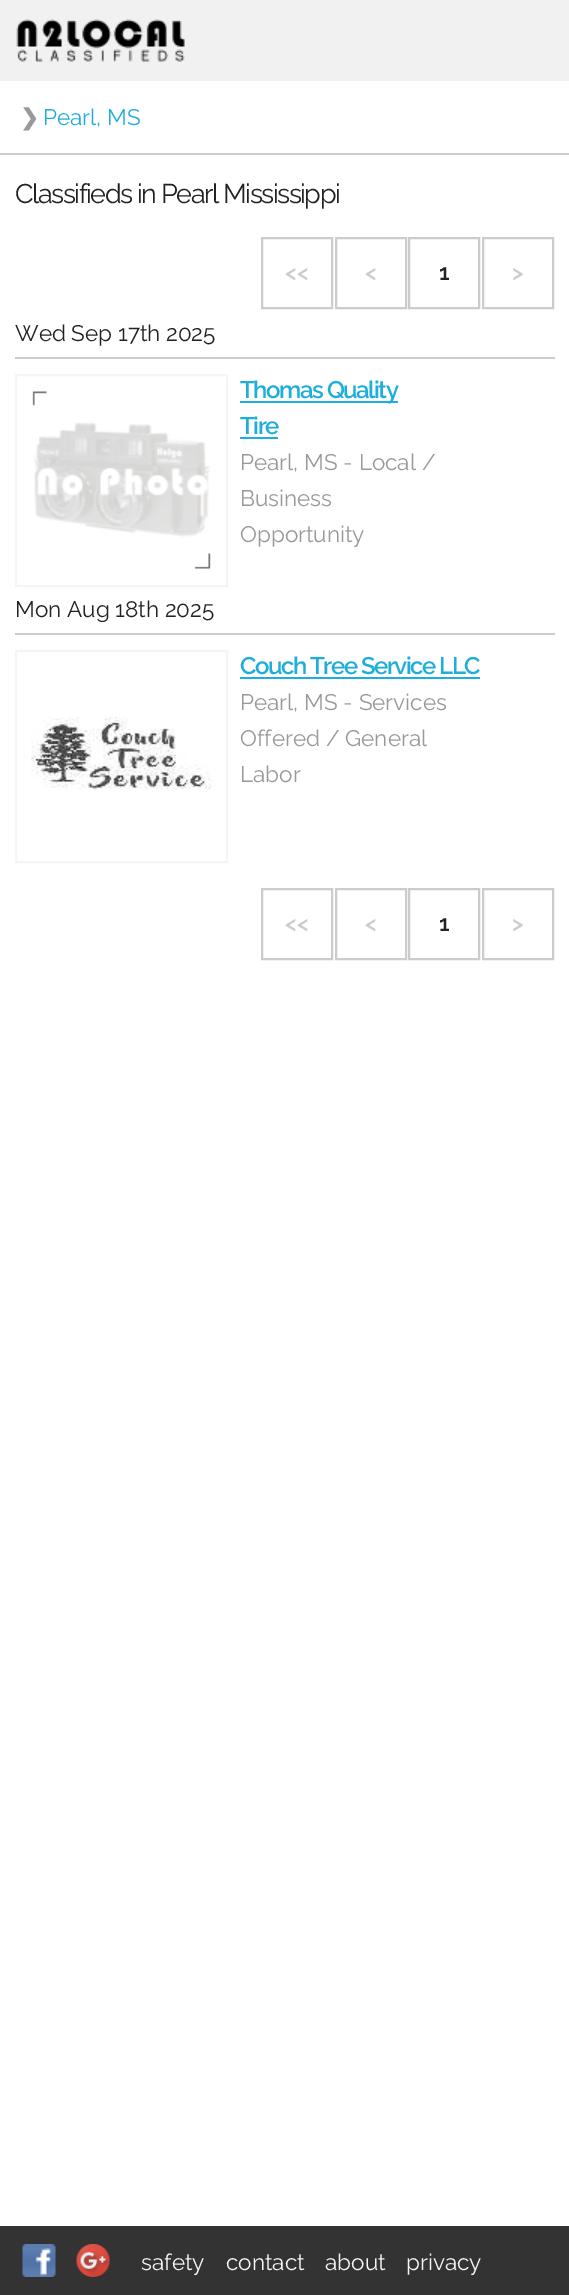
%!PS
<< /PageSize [569 2295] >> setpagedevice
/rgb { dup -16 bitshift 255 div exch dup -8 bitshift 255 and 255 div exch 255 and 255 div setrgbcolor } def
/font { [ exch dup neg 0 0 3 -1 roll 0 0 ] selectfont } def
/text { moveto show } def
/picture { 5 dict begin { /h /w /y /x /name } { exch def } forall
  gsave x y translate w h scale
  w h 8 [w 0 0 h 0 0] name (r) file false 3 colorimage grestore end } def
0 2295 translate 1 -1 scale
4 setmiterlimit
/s1 { /DejaVuSans-Bold 22.5 font 16#999999 rgb } def
/s2 { /Raleway-Regular 22.5 font 16#1EAEDB rgb } def
/s3 { /Raleway-SemiBold 22.5 font 16#CCCCCC rgb } def
/s4 { /Raleway-SemiBold 22.5 font 16#222222 rgb } def
/s5 { /Raleway-Regular 22.5 font 16#222222 rgb } def
/s6 { /Raleway-Regular 22.5 font 16#999999 rgb } def
/s7 { /Raleway-Regular 22.5 font 16#F5F5F5 rgb } def
16#FFFFFF rgb
0 0 569 2295 rectfill
16#F1F1F1 rgb
0 0 569 81 rectfill
(pic1.raw) 16 19 169 43 picture
16#CCCCCC rgb
0 153 569 2 rectfill
s1
(❯) 20 125 text
s2
(Pearl, MS) 43 125 text
/Raleway-Regular 27 font
16#222222 rgb
15 203 moveto -1.5 0 (Classifieds in Pearl Mississippi) ashow
16#CCCCCC rgb
2 setlinewidth
262 238 70 70 rectstroke
s3
(<<) 285 280 text
336 238 70 70 rectstroke
(<) 365 280 text
409 238 70 70 rectstroke
s4
(1) 439 280 text
16#CCCCCC rgb
483 238 70 70 rectstroke
(>) 512 280 text
15 357 540 2 rectfill
s5
(Wed Sep 17th 2025) 15 341 text
16#F5F5F5 rgb
16 375 211 211 rectstroke
(pic2.raw) 32 391 179 178 picture
16#1EAEDB rgb
240 401 158 2 rectfill
/Raleway-SemiBold 24 font
240 398 moveto -1.5 0 (Thomas Quality) ashow
240 434 moveto -1.5 0 (Tire) ashow
240 437 38 2 rectfill
s6
(Pearl, MS - Local /) 240 470 text
(Business) 240 506 text
(Opportunity) 240 542 text
16#CCCCCC rgb
15 633 540 2 rectfill
s5
(Mon Aug 18th 2025) 15 617 text
16#F5F5F5 rgb
16 651 211 211 rectstroke
(pic3.raw) 31 717 181 73 picture
/Raleway-SemiBold 24 font
16#1EAEDB rgb
240 674 moveto -1.5 0 (Couch Tree Service LLC) ashow
240 677 240 2 rectfill
s6
(Pearl, MS - Services) 240 710 text
(Offered / General) 240 746 text
(Labor) 240 782 text
16#CCCCCC rgb
262 889 70 70 rectstroke
s3
(<<) 285 931 text
336 889 70 70 rectstroke
(<) 365 931 text
409 889 70 70 rectstroke
s4
(1) 439 931 text
16#CCCCCC rgb
483 889 70 70 rectstroke
(>) 512 931 text
16#333333 rgb
0 2226 569 69 rectfill
(pic4.raw) 22 2244 34 33 picture
(pic5.raw) 76 2244 34 33 picture
s7
(safety) 141 2270 text
(contact) 226 2270 text
(about) 325 2270 text
(privacy) 406 2270 text
showpage
